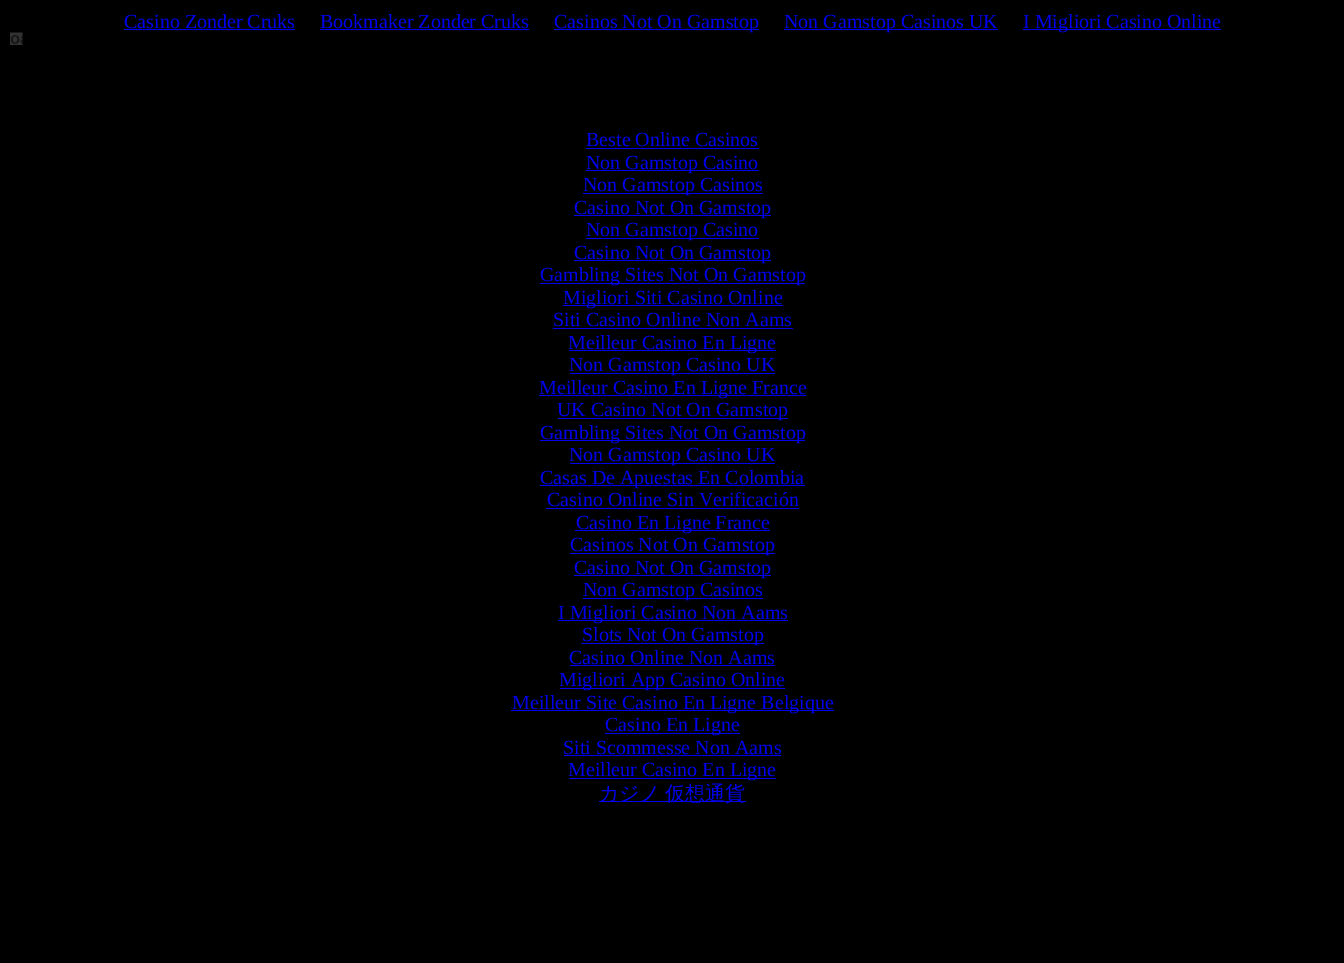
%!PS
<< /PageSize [1344 963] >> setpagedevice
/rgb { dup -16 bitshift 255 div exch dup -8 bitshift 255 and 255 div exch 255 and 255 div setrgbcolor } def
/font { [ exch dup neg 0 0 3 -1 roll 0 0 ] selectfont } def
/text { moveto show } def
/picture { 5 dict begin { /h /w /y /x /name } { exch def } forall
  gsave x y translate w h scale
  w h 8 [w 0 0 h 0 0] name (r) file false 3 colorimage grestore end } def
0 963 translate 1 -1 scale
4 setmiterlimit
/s1 { /LiberationSerif-Regular 20 font 16#0000EE rgb } def
16#000000 rgb
0 0 1344 963 rectfill
s1
(Casino Zonder Cruks) 124 28 text
124 29 171 1 rectfill
(Bookmaker Zonder Cruks) 320 28 text
320 29 209 1 rectfill
554 29 205 1 rectfill
(Casinos Not On Gamstop) 554 28 text
784 29 214 1 rectfill
(Non Gamstop Casinos UK) 784 28 text
1023 29 198 1 rectfill
(I Migliori Casino Online) 1023 28 text
(pic1.raw) 10 32 13 13 picture
(Beste Online Casinos) 586 146 text
586 148 173 1 rectfill
586 170 173 1 rectfill
(Non Gamstop Casino) 586 169 text
583 193 180 1 rectfill
(Non Gamstop Casinos) 583 191 text
574 215 197 1 rectfill
(Casino Not On Gamstop) 574 214 text
586 238 173 1 rectfill
(Non Gamstop Casino) 586 236 text
574 260 197 1 rectfill
(Casino Not On Gamstop) 574 259 text
540 283 265 1 rectfill
(Gambling Sites Not On Gamstop) 540 281 text
563 305 220 1 rectfill
(Migliori Siti Casino Online) 563 304 text
(Siti Casino Online Non Aams) 553 326 text
553 328 240 1 rectfill
569 350 207 1 rectfill
(Meilleur Casino En Ligne) 568 349 text
570 373 205 1 rectfill
(Non Gamstop Casino UK) 569 371 text
539 395 267 1 rectfill
(Meilleur Casino En Ligne France) 539 394 text
558 418 230 1 rectfill
(UK Casino Not On Gamstop) 557 416 text
540 440 265 1 rectfill
(Gambling Sites Not On Gamstop) 540 439 text
570 463 205 1 rectfill
(Non Gamstop Casino UK) 569 461 text
540 485 265 1 rectfill
(Casas De Apuestas En Colombia) 540 484 text
(Casino Online Sin Verificación) 547 506 text
546 508 253 1 rectfill
575 530 195 1 rectfill
(Casino En Ligne France) 576 529 text
570 553 205 1 rectfill
(Casinos Not On Gamstop) 570 551 text
574 575 197 1 rectfill
(Casino Not On Gamstop) 574 574 text
583 598 180 1 rectfill
(Non Gamstop Casinos) 583 596 text
558 620 230 1 rectfill
(I Migliori Casino Non Aams) 558 619 text
581 643 183 1 rectfill
(Slots Not On Gamstop) 582 641 text
(Casino Online Non Aams) 569 664 text
570 665 205 1 rectfill
560 688 225 1 rectfill
(Migliori App Casino Online) 559 686 text
511 710 323 1 rectfill
(Meilleur Site Casino En Ligne Belgique) 512 709 text
605 733 135 1 rectfill
(Casino En Ligne) 605 731 text
(Siti Scommesse Non Aams) 563 754 text
564 755 217 1 rectfill
569 778 207 1 rectfill
(Meilleur Casino En Ligne) 568 776 text
599 801 147 1 rectfill
/WenQuanYiZenHei-Medium 20 font
599 800 moveto -1 0 32 (カジノ 仮想通貨) widthshow
showpage
